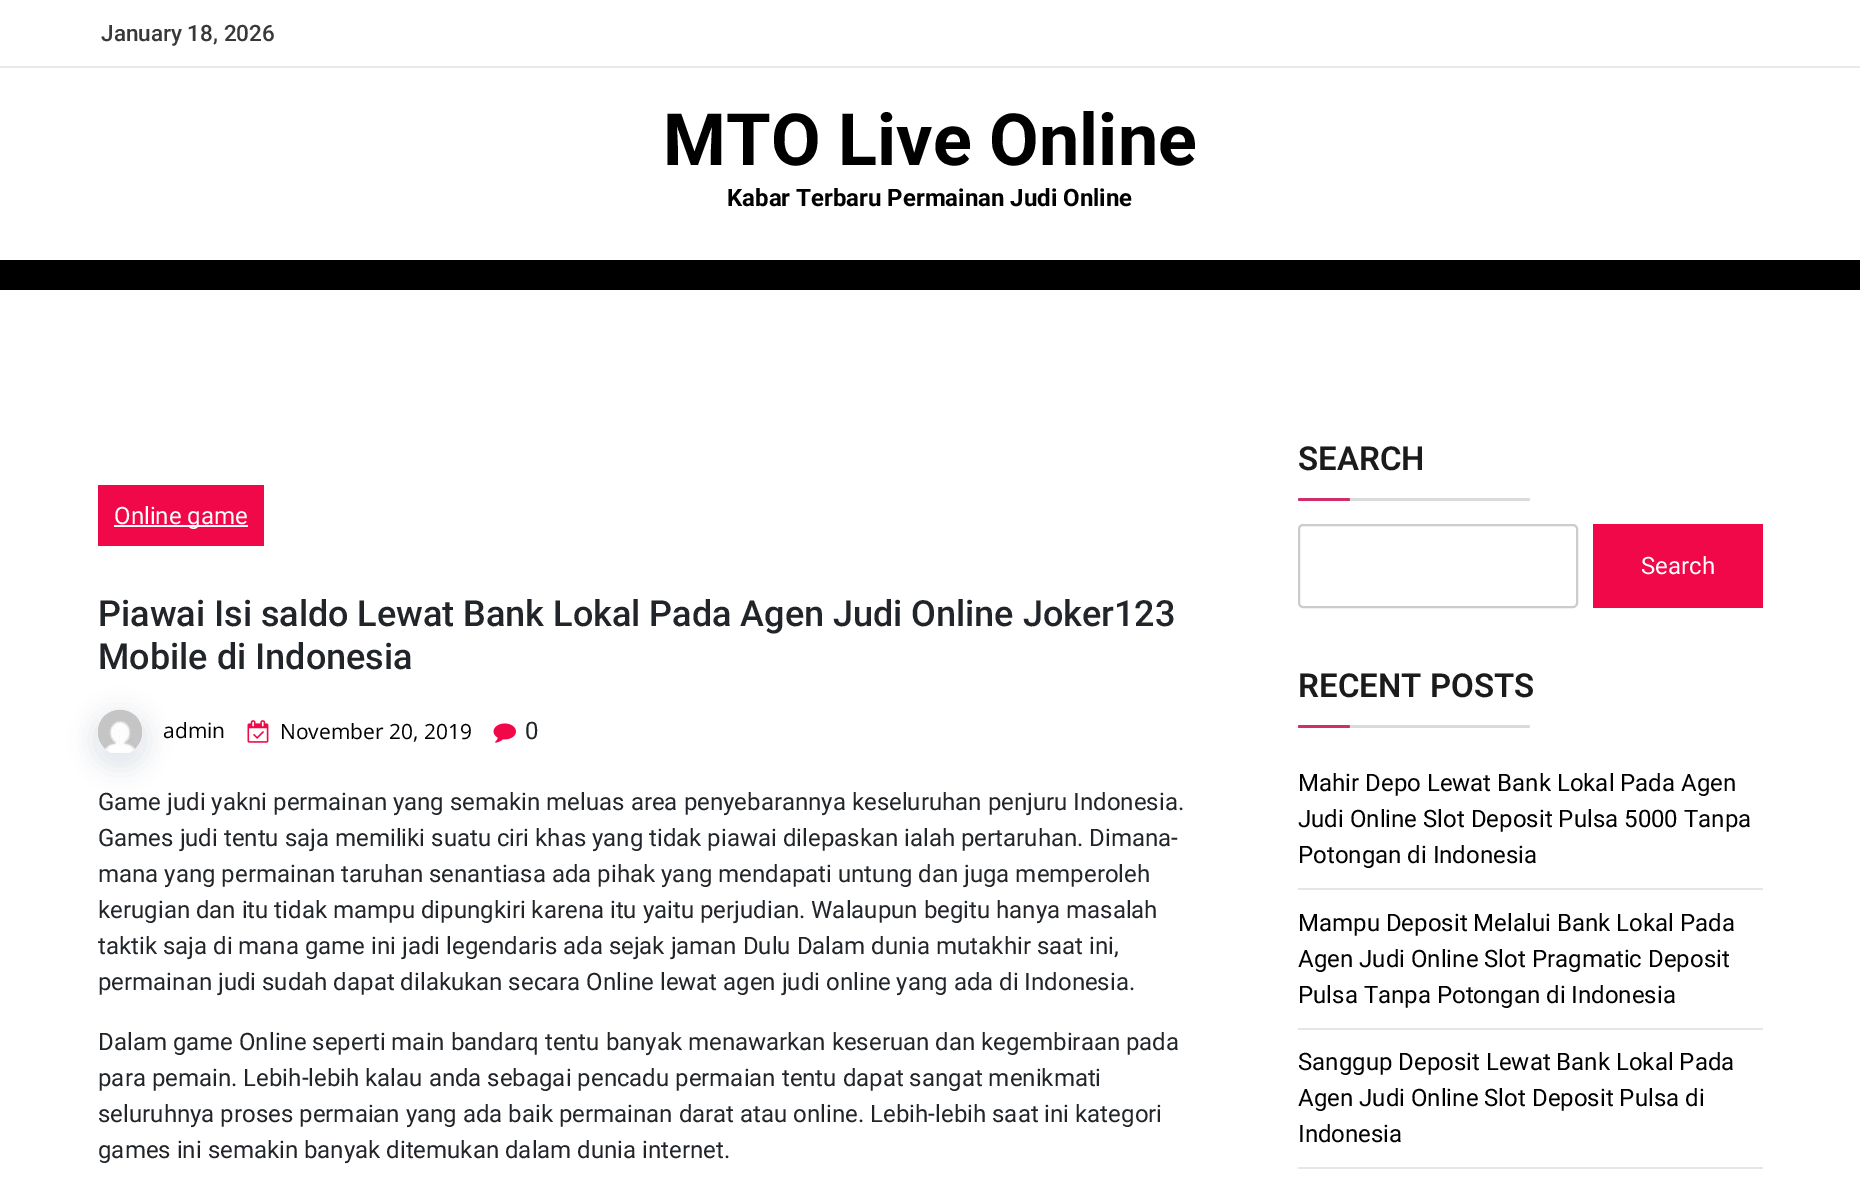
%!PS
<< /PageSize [1860 1203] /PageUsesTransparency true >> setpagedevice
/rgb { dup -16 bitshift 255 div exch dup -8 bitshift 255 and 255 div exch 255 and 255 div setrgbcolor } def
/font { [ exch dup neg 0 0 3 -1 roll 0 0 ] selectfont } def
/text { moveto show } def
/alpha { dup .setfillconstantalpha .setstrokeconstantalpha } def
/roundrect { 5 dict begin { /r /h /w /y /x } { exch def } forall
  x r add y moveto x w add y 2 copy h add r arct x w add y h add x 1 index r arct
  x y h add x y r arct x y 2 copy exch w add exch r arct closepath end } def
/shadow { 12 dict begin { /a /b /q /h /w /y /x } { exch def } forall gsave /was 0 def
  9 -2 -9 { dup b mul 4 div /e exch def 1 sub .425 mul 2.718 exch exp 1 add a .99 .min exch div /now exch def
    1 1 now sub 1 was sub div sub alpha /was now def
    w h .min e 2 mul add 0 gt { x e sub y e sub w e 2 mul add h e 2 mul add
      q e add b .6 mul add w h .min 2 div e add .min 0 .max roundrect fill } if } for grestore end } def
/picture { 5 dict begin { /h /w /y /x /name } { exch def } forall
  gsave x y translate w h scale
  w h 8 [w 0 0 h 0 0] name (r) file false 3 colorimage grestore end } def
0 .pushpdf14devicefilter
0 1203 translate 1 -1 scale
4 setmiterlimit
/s1 { /Roboto-Medium 22.5 font 16#383838 rgb } def
/s2 { /Roboto-Bold 72 font 16#000000 rgb } def
/s3 { /Roboto-Bold 24 font 16#000000 rgb } def
/s4 { /Roboto-Regular 24 font 16#FFFFFF rgb } def
/s5 { /Roboto-Medium 36 font 16#212529 rgb } def
/s6 { /OpenSans-Regular 21 font 16#000000 rgb } def
/s7 { /Roboto-Regular 24 font 16#212529 rgb } def
/s8 { /Roboto-SemiBold 33 font 16#1C1B1B rgb } def
/s9 { /Roboto-Regular 24 font 16#000000 rgb } def
16#FFFFFF rgb
0 0 1860 1203 rectfill
16#EBE8E8 rgb
0 66 1860 2 rectfill
s1
(January 18, 2026) 101 41 text
s2
(MTO Live Online) 663 165 text
s3
(Kabar Terbaru Permainan Judi Online) 727 206 text
0 260 1860 30 rectfill
16#F10849 rgb
98 485 166 61 rectfill
16#FFFFFF rgb
114 525 134 2 rectfill
s4
(Online game) 114 524 text
s5
(Piawai Isi saldo Lewat Bank Lokal Pada Agen Judi Online Joker123) 98 626 text
(Mobile di Indonesia) 98 669 text
16#002155 rgb
90 710 60 60 30 11 0.1 shadow
(pic1.raw) 97 709 46 44 picture
s6
(admin) 163 738 text
(pic2.raw) 247 720 22 23 picture
(November 20, 2019) 280 739 text
(pic3.raw) 493 723 23 20 picture
s7
(0) 525 739 text
(Game judi yakni permainan yang semakin meluas area penyebarannya keseluruhan penjuru Indonesia.) 98 810 text
(Games judi tentu saja memiliki suatu ciri khas yang tidak piawai dilepaskan ialah pertaruhan. Dimana-) 98 846 text
(mana yang permainan taruhan senantiasa ada pihak yang mendapati untung dan juga memperoleh) 98 882 text
(kerugian dan itu tidak mampu dipungkiri karena itu yaitu perjudian. Walaupun begitu hanya masalah) 98 918 text
(taktik saja di mana game ini jadi legendaris ada sejak jaman Dulu Dalam dunia mutakhir saat ini,) 98 954 text
(permainan judi sudah dapat dilakukan secara Online lewat agen judi online yang ada di Indonesia.) 98 990 text
(Dalam game Online seperti main bandarq tentu banyak menawarkan keseruan dan kegembiraan pada) 98 1050 text
(para pemain. Lebih-lebih kalau anda sebagai pencadu permaian tentu dapat sangat menikmati) 98 1086 text
(seluruhnya proses permaian yang ada baik permainan darat atau online. Lebih-lebih saat ini kategori) 98 1122 text
(games ini semakin banyak ditemukan dalam dunia internet.) 98 1158 text
s8
(SEARCH) 1298 470 text
16#DADADA rgb
1298 498 232 3 1.5 roundrect fill
16#D02E6A rgb
1298 498 52 3 1.5 roundrect fill
16#CCCCCC rgb
2 setlinewidth
1299 525 278 82 4 roundrect stroke
16#F10849 rgb
1593 524 170 84 rectfill
s4
(Search) 1641 574 text
s8
(RECENT POSTS) 1298 697 text
16#DADADA rgb
1298 725 232 3 1.5 roundrect fill
16#D02E6A rgb
1298 725 52 3 1.5 roundrect fill
16#E6E6E6 rgb
1298 888 465 2 rectfill
s9
(Mahir Depo Lewat Bank Lokal Pada Agen) 1298 791 text
(Judi Online Slot Deposit Pulsa 5000 Tanpa) 1298 827 text
(Potongan di Indonesia) 1298 863 text
16#E6E6E6 rgb
1298 1028 465 2 rectfill
s9
(Mampu Deposit Melalui Bank Lokal Pada) 1298 931 text
(Agen Judi Online Slot Pragmatic Deposit) 1298 967 text
(Pulsa Tanpa Potongan di Indonesia) 1298 1003 text
16#E6E6E6 rgb
1298 1167 465 2 rectfill
s9
(Sanggup Deposit Lewat Bank Lokal Pada) 1298 1070 text
(Agen Judi Online Slot Deposit Pulsa di) 1298 1106 text
(Indonesia) 1298 1142 text
.poppdf14devicefilter showpage
